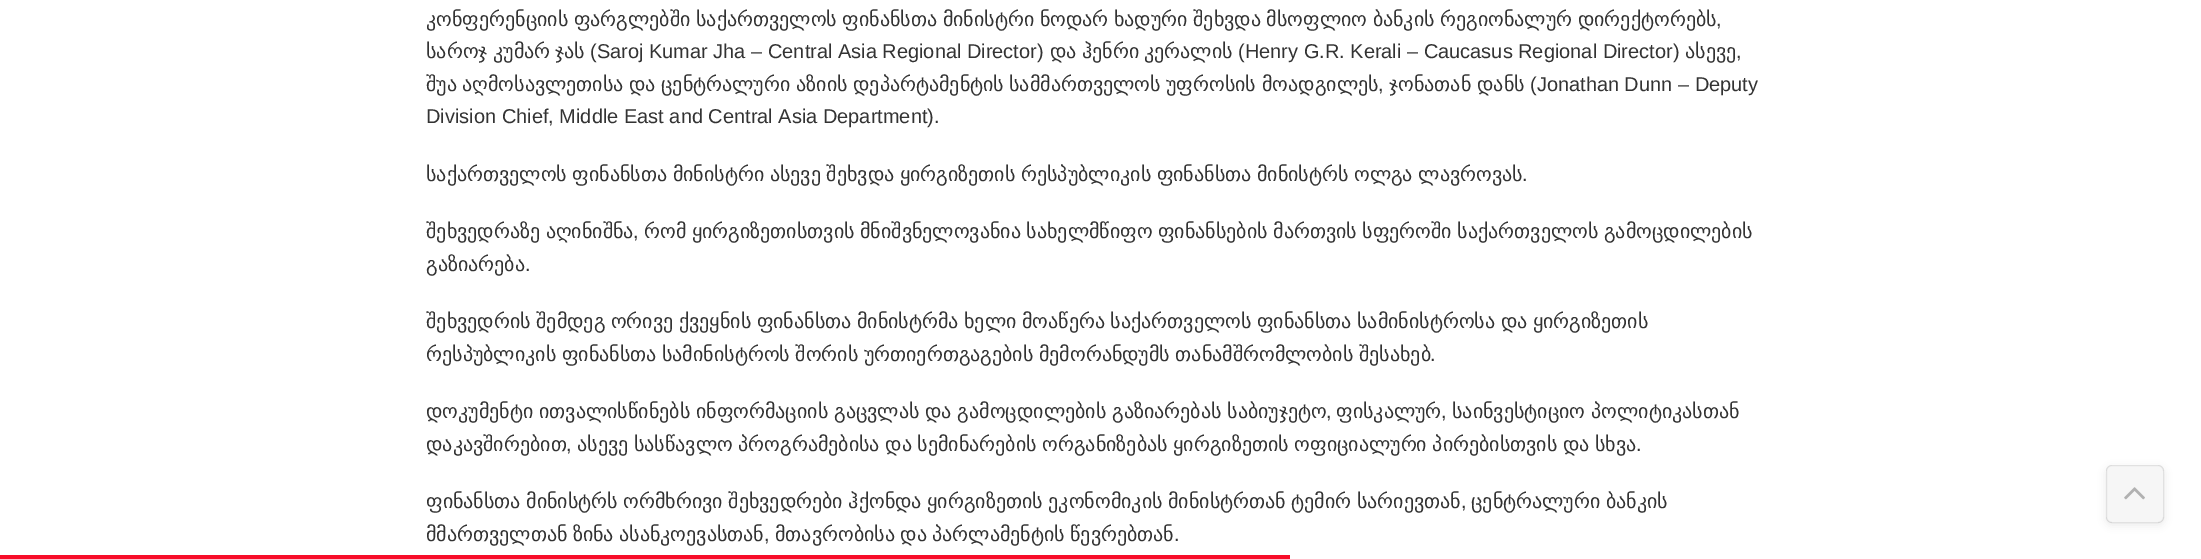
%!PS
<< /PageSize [2201 559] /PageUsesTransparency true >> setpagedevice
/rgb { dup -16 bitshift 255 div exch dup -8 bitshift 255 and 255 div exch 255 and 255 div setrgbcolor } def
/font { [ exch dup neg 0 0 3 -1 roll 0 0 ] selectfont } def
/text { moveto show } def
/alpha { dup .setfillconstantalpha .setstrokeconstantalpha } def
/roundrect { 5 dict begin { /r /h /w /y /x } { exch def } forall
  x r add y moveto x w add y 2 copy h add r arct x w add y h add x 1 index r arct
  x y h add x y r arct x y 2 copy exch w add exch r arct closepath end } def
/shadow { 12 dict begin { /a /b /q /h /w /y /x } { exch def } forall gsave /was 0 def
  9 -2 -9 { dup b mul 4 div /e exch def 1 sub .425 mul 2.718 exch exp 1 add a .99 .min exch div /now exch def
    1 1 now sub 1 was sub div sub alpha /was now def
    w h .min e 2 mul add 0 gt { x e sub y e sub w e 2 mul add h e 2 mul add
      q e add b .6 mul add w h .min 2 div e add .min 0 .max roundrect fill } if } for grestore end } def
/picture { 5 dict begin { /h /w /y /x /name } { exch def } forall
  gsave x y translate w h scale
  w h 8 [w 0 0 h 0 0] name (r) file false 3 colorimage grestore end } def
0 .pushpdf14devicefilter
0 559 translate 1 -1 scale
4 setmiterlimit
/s1 { /LiberationSans-Regular 20 font 16#333333 rgb } def
/s2 { /DejaVuSans-Regular 20 font 16#333333 rgb } def
16#FFFFFF rgb
0 0 2201 559 rectfill
/DejaVuSans-Regular 20 font
16#333333 rgb
426 26 moveto -0.75 0 32 (კონფერენციის ფარგლებში საქართველოს ფინანსთა მინისტრი ნოდარ ხადური შეხვდა მსოფლიო ბანკის რეგიონალურ დირექტორებს) widthshow
s1
(,) 1716 26 text
s2
(საროჯ) 426 58 text
(კუმარ) 493 58 text
(ჯას) 555 58 text
s1
(\(Saroj Kumar Jha – Central Asia Regional Director\)) 590 58 text
s2
(და) 1050 58 text
(ჰენრი) 1082 58 text
(კერალის) 1144 58 text
s1
(\(Henry G.R. Kerali – Caucasus Regional Director\)) 1238 58 text
s2
(ასევე) 1685 58 text
s1
(,) 1736 58 text
s2
(შუა) 426 91 text
(აღმოსავლეთისა) 462 91 text
(და) 629 91 text
(ცენტრალური) 661 91 text
(აზიის) 796 91 text
(დეპარტამენტის) 853 91 text
(სამმართველოს) 1009 91 text
(უფროსის) 1166 91 text
(მოადგილეს) 1262 91 text
s1
(,) 1378 91 text
s2
(ჯონათან) 1389 91 text
(დანს) 1477 91 text
s1
(\(Jonathan Dunn – Deputy) 1530 91 text
(Division Chief, Middle East and Central Asia Department\).) 426 123 text
/DejaVuSans-Regular 20 font
426 181 moveto -0.75 0 32 (საქართველოს ფინანსთა მინისტრი ასევე შეხვდა ყირგიზეთის რესპუბლიკის ფინანსთა მინისტრს ოლგა ლავროვას) widthshow
s1
(.) 1522 181 text
/DejaVuSans-Regular 20 font
426 238 moveto -0.75 0 32 (შეხვედრაზე აღინიშნა) widthshow
s1
(,) 633 238 text
/DejaVuSans-Regular 20 font
644 238 moveto -0.75 0 32 (რომ ყირგიზეთისთვის მნიშვნელოვანია სახელმწიფო ფინანსების მართვის სფეროში საქართველოს გამოცდილების) widthshow
(გაზიარება) 426 271 text
s1
(.) 525 271 text
/DejaVuSans-Regular 20 font
426 328 moveto -0.75 0 32 (შეხვედრის შემდეგ ორივე ქვეყნის ფინანსთა მინისტრმა ხელი მოაწერა საქართველოს ფინანსთა სამინისტროსა და ყირგიზეთის) widthshow
426 361 moveto -0.75 0 32 (რესპუბლიკის ფინანსთა სამინისტროს შორის ურთიერთგაგების მემორანდუმს თანამშრომლობის შესახებ) widthshow
s1
(.) 1430 361 text
/DejaVuSans-Regular 20 font
426 418 moveto -0.5 0 32 (დოკუმენტი ითვალისწინებს ინფორმაციის გაცვლას და გამოცდილების გაზიარებას საბიუჯეტო) widthshow
s1
(,) 1326 418 text
s2
(ფისკალურ) 1336 418 text
s1
(,) 1441 418 text
/DejaVuSans-Regular 20 font
1452 418 moveto -0.5 0 32 (საინვესტიციო პოლიტიკასთან) widthshow
(დაკავშირებით) 426 451 text
s1
(,) 566 451 text
/DejaVuSans-Regular 20 font
577 451 moveto -0.75 0 32 (ასევე სასწავლო პროგრამებისა და სემინარების ორგანიზებას ყირგიზეთის ოფიციალური პირებისთვის და სხვა) widthshow
s1
(.) 1636 451 text
/DejaVuSans-Regular 20 font
426 508 moveto -0.75 0 32 (ფინანსთა მინისტრს ორმხრივი შეხვედრები ჰქონდა ყირგიზეთის ეკონომიკის მინისტრთან ტემირ სარიევთან) widthshow
s1
(,) 1461 508 text
/DejaVuSans-Regular 20 font
1471 508 moveto -0.75 0 32 (ცენტრალური ბანკის) widthshow
426 541 moveto -1 0 32 (მმართველთან ზინა ასანკოევასთან) widthshow
s1
(,) 764 541 text
/DejaVuSans-Regular 20 font
775 541 moveto -1 0 32 (მთავრობისა და პარლამენტის წევრებთან) widthshow
s1
(.) 1174 541 text
gsave
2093 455 moveto 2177 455 lineto 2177 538 lineto 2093 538 lineto closepath 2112 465 moveto 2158 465 lineto 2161.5 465 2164 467.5 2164 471 curveto 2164 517 lineto 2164 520.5 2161.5 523 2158 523 curveto 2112 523 lineto 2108.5 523 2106 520.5 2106 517 curveto 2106 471 lineto 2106 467.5 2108.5 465 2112 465 curveto closepath eoclip newpath
2106 468 58 57 6 4 0.1 shadow
grestore
0.15 alpha
16#C3C3C3 rgb
2106 465 58 58 6 roundrect fill
0.11 alpha
16#333333 rgb
2106.5 465.5 57 57 5.5 roundrect stroke
1 alpha
(pic1.raw) 2124 487 21 13 picture
16#F70D28 rgb
0 555 1290 4 rectfill
.poppdf14devicefilter showpage
